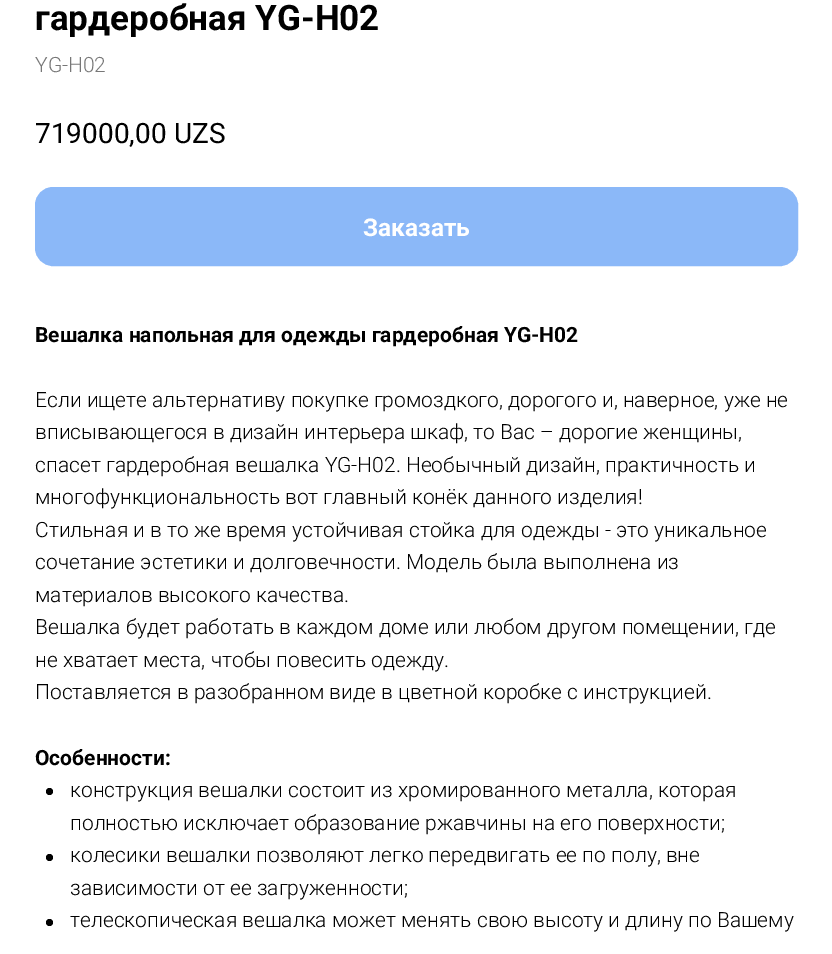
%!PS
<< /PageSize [832 954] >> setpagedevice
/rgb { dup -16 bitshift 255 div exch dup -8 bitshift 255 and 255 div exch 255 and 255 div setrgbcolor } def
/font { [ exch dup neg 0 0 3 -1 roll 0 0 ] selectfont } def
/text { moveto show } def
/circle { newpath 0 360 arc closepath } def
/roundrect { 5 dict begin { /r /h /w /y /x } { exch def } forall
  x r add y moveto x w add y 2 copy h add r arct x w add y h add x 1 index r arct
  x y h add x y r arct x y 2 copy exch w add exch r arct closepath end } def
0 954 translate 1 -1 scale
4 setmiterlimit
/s1 { /Roboto-Bold 35 font 16#000000 rgb } def
/s2 { /Roboto-Light 21 font 16#777777 rgb } def
/s3 { /Roboto-Regular 28 font 16#000000 rgb } def
/s4 { /Roboto-Bold 24.5 font 16#FFFFFF rgb } def
/s5 { /Roboto-Bold 21 font 16#000000 rgb } def
/s6 { /Roboto-Light 21 font 16#000000 rgb } def
16#FFFFFF rgb
0 0 832 954 rectfill
s1
(гардеробная YG-H02) 35 30 text
s2
(YG-H02) 35 72 text
s3
(719000,00) 35 143 text
(UZS) 174 143 text
16#8BB8F8 rgb
36 188 761 77 17 roundrect gsave fill grestore
2 setlinewidth
stroke
s4
(Заказать) 363 236 text
s5
(Вешалка напольная для одежды гардеробная YG-H02) 35 342 text
s6
(Если ищете альтернативу покупке громоздкого, дорогого и, наверное, уже не) 35 407 text
(вписывающегося в дизайн интерьера шкаф, то Вас – дорогие женщины,) 35 439 text
(спасет гардеробная вешалка YG-H02. Необычный дизайн, практичность и) 35 472 text
(многофункциональность вот главный конёк данного изделия!) 35 504 text
(Стильная и в то же время устойчивая стойка для одежды - это уникальное) 35 537 text
(сочетание эстетики и долговечности. Модель была выполнена из) 35 569 text
(материалов высокого качества.) 35 602 text
(Вешалка будет работать в каждом доме или любом другом помещении, где) 35 634 text
(не хватает места, чтобы повесить одежду.) 35 667 text
(Поставляется в разобранном виде в цветной коробке с инструкцией.) 35 699 text
s5
(Особенности:) 35 765 text
49.5 791.5 3.5 circle fill
s6
(конструкция вешалки состоит из хромированного металла, которая) 70 797 text
(полностью исключает образование ржавчины на его поверхности;) 70 830 text
49.5 857.5 3.5 circle fill
(колесики вешалки позволяют легко передвигать ее по полу, вне) 70 862 text
(зависимости от ее загруженности;) 70 895 text
49.5 922.5 3.5 circle fill
(телескопическая вешалка может менять свою высоту и длину по Вашему) 70 927 text
showpage
